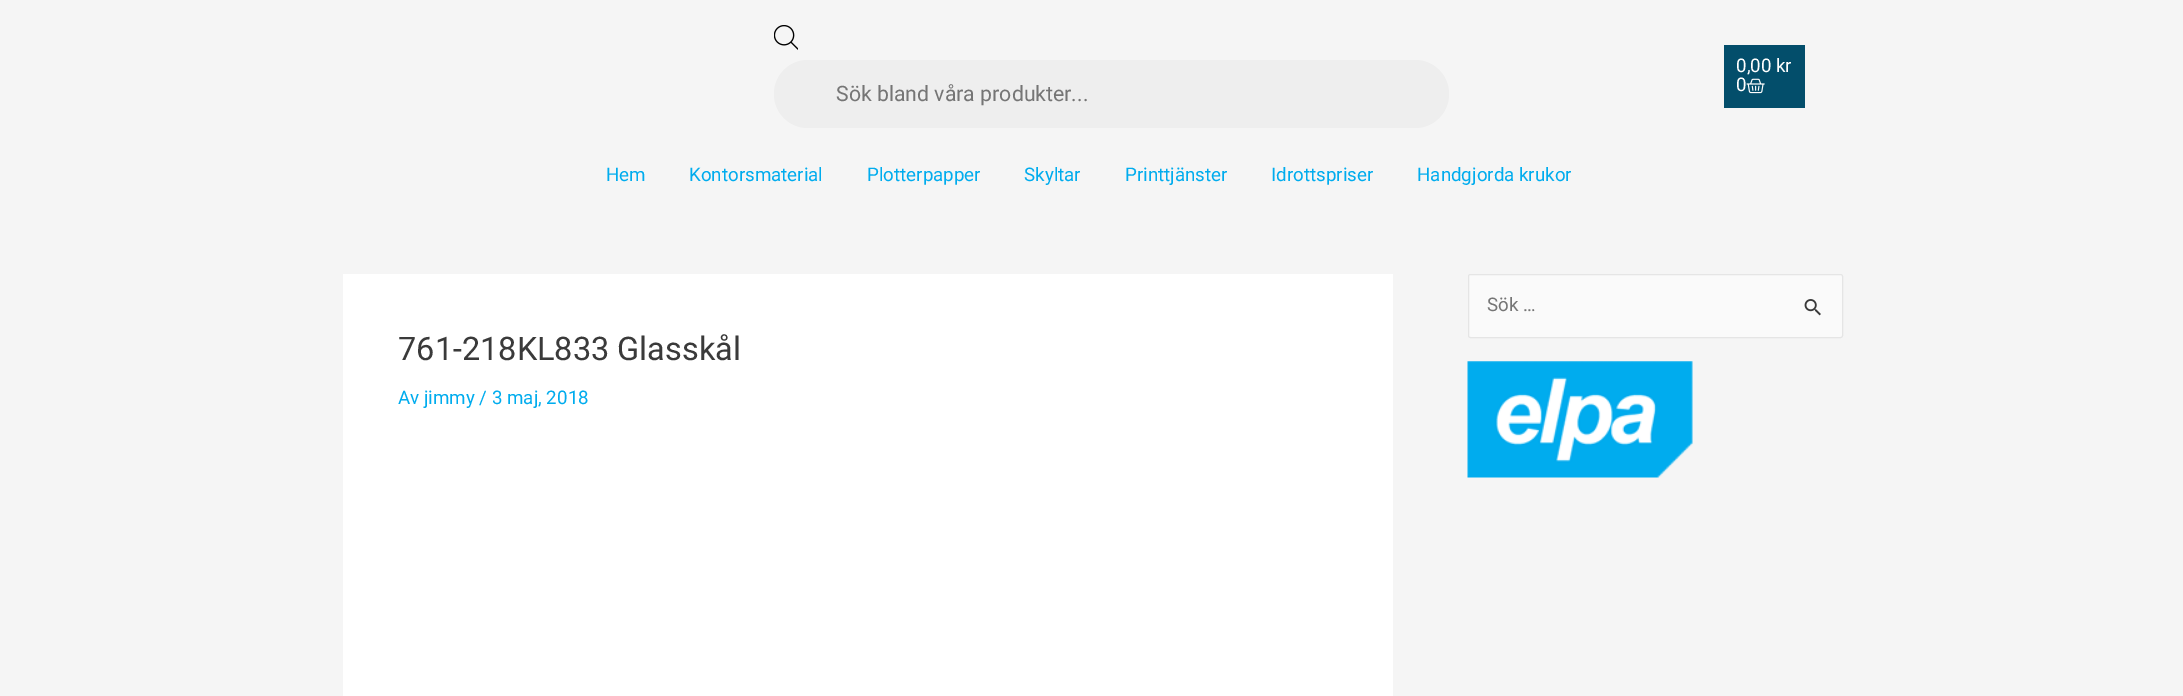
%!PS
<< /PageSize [2183 696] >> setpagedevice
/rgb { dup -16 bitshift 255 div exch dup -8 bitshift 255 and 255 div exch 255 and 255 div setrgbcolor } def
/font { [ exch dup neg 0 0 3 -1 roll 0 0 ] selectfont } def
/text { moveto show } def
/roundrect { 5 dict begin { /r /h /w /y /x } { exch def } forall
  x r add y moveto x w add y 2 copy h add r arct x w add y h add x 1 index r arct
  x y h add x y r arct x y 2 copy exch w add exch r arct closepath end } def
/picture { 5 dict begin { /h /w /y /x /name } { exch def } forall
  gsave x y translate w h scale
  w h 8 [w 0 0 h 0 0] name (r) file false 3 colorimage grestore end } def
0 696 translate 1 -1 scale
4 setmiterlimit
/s1 { /Roboto-Regular 18.75 font 16#FFFFFF rgb } def
/s2 { /Roboto-Regular 21.25 font 16#757575 rgb } def
/s3 { /Roboto-Regular 18.75 font 16#00ACEE rgb } def
/s4 { /Roboto-Regular 18.75 font 16#757575 rgb } def
/s5 { /Roboto-Regular 32.5 font 16#3A3A3A rgb } def
16#F5F5F5 rgb
0 0 2183 696 rectfill
16#034E6B rgb
1724 45 81 63 rectfill
s1
(0,00 kr) 1736 72 text
(0) 1736 91 text
(pic1.raw) 1746 78 19 16 picture
(pic2.raw) 774 25 24 25 picture
16#EEEEEE rgb
774 60 675 68 34 roundrect fill
s2
(Sök bland våra produkter...) 836 101 text
s3
(Hem) 606 181 text
(Kontorsmaterial) 689 181 text
(Plotterpapper) 867 181 text
(Skyltar) 1024 181 text
(Printtjänster) 1125 181 text
(Idrottspriser) 1271 181 text
(Handgjorda krukor) 1417 181 text
16#FAFAFA rgb
1468.5 274.5 374 63 2 roundrect gsave fill grestore
16#E5E5E5 rgb
stroke
s4
(Sök …) 1487 311 text
(pic3.raw) 1804 299 17 17 picture
(pic4.raw) 1467 361 226 117 picture
16#FFFFFF rgb
343 274 1050 422 rectfill
s5
(761-218KL833 Glasskål) 398 360 text
s3
(Av jimmy / 3 maj, 2018) 398 404 text
showpage
